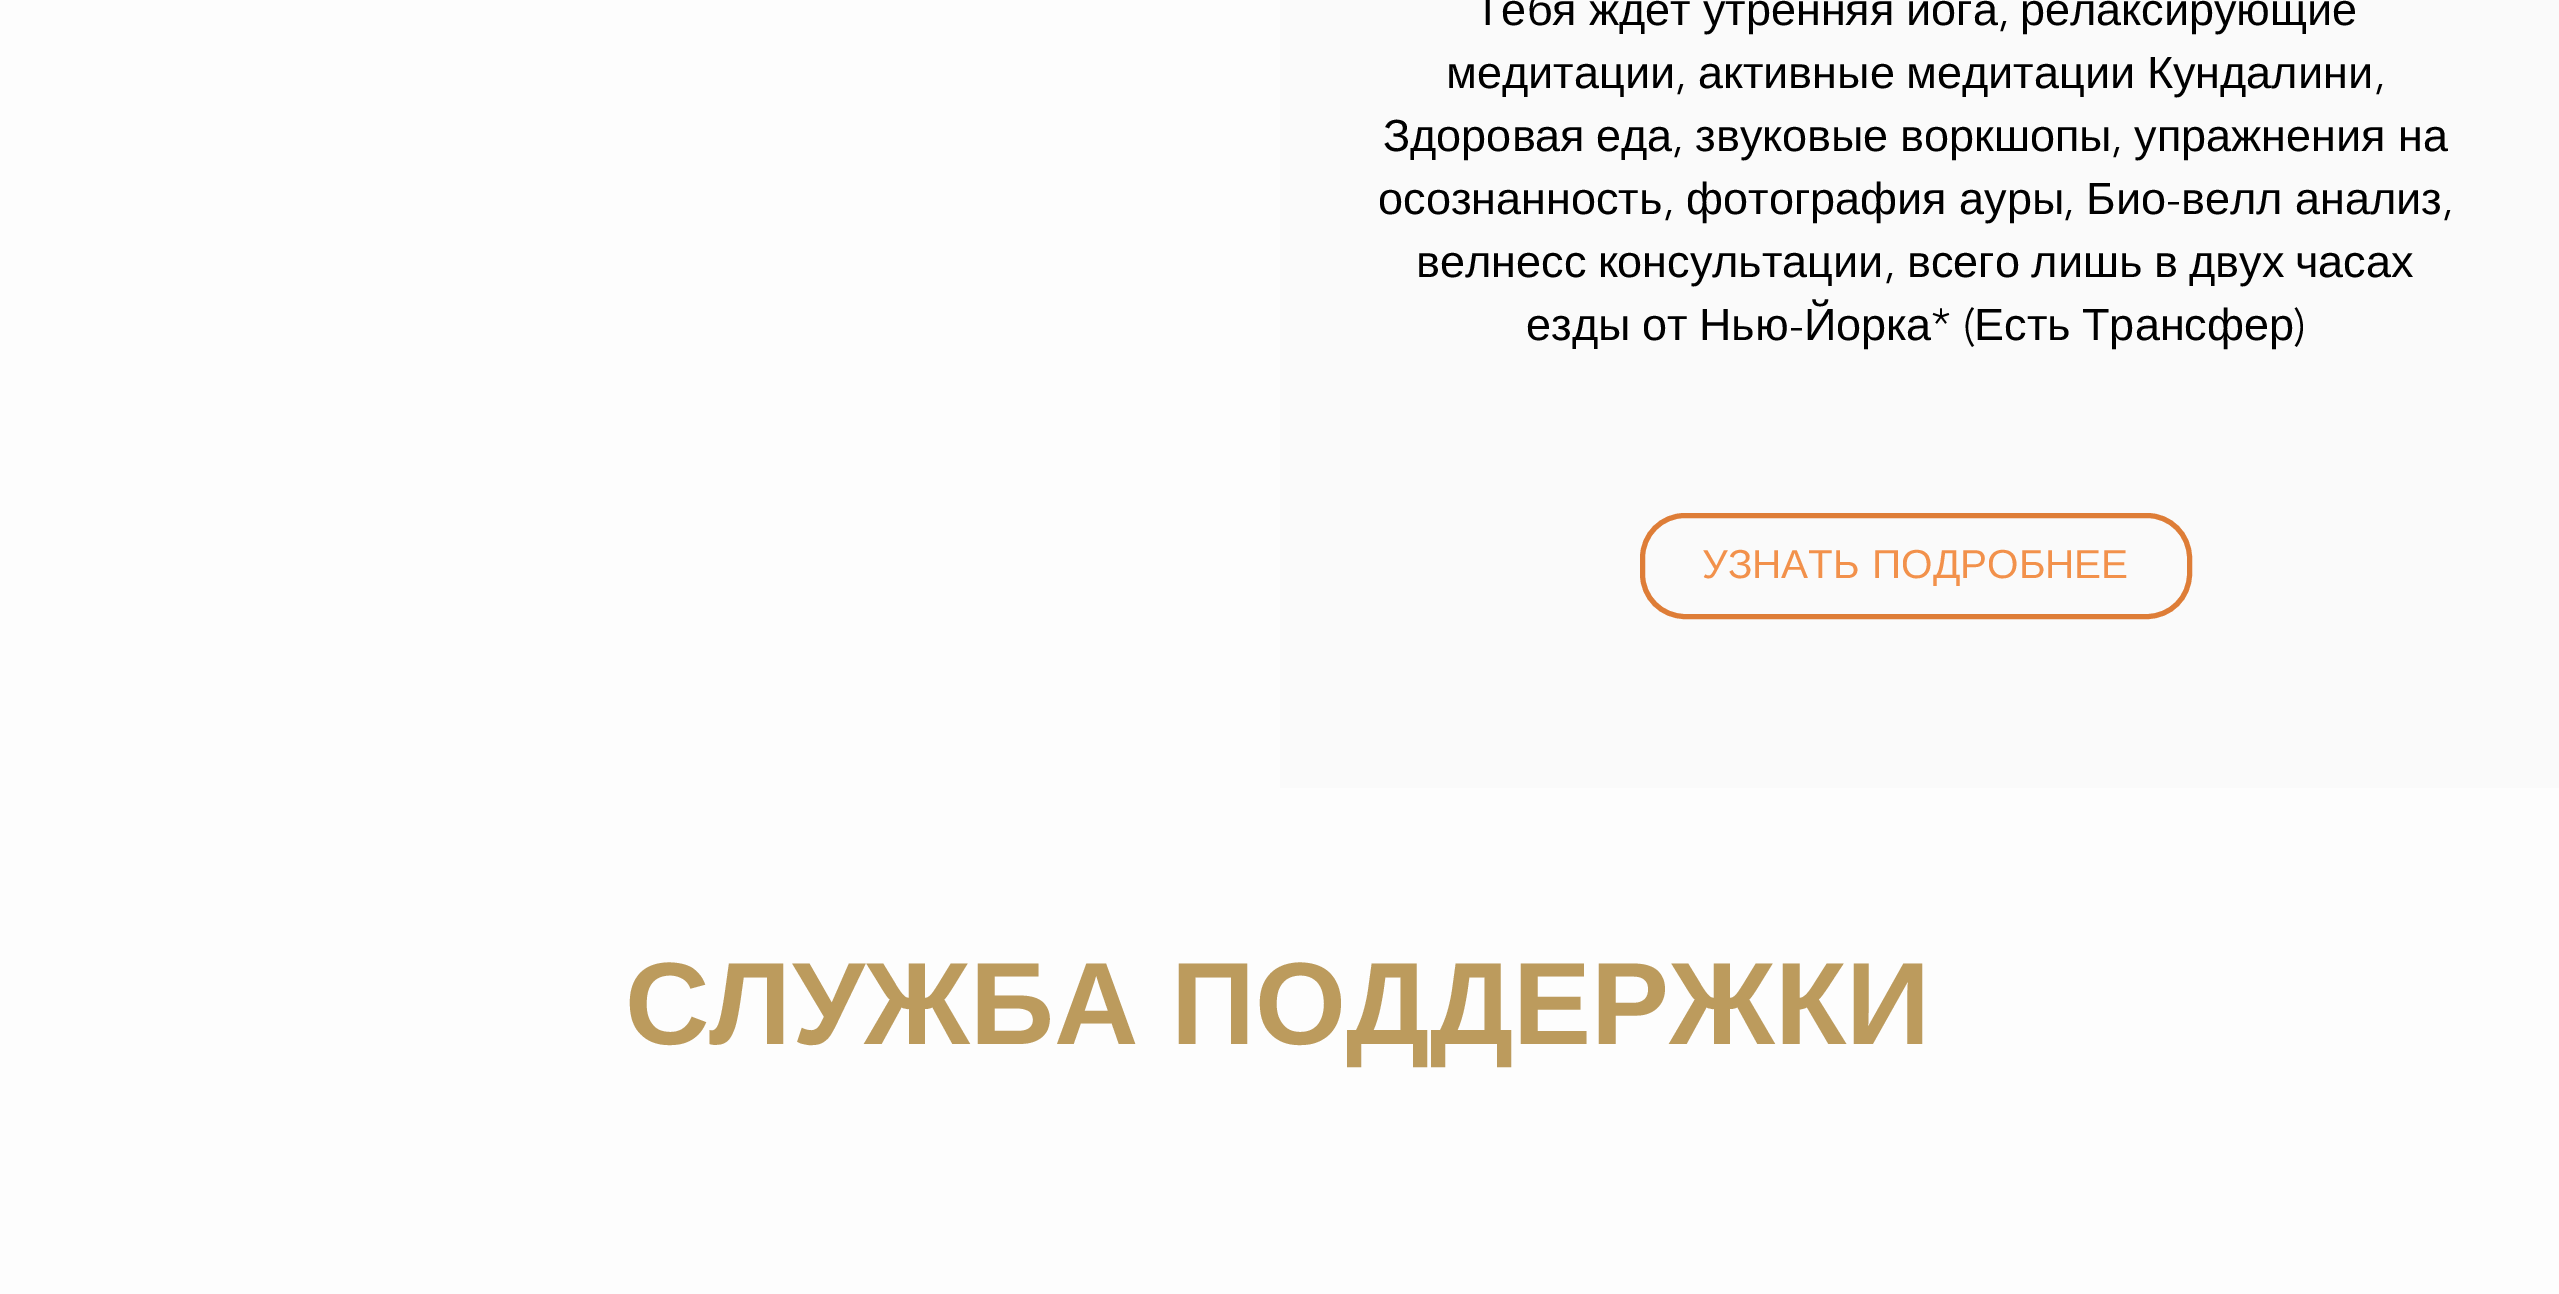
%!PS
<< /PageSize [2559 1294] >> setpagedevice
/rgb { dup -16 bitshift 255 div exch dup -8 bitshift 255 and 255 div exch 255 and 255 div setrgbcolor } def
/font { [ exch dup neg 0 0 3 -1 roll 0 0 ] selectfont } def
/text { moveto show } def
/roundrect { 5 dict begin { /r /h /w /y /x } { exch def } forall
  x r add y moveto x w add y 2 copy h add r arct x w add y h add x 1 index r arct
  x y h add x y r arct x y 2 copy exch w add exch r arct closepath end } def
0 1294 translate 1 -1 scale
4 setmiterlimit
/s1 { /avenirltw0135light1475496-Light 45 font 16#000000 rgb } def
/s2 { /LiberationSans-Regular 45 font 16#000000 rgb } def
/s3 { /LiberationSans-Bold 117 font 16#BC9B5D rgb } def
16#FDFDFD rgb
0 0 2559 1294 rectfill
16#FAFAFA rgb
1280 0 1279 788 rectfill
/LiberationSans-Regular 45 font
16#000000 rgb
1474 25 moveto -0.5 0 32 (Тебя ждёт утренняя йога) widthshow
s1
(,) 1998 25 text
s2
(релаксирующие) 2020 25 text
(медитации) 1446 88 text
s1
(,) 1675 88 text
/LiberationSans-Regular 45 font
1698 88 moveto -1 0 32 (активные медитации Кундалини) widthshow
s1
(,) 2374 88 text
s2
(Здоровая) 1383 151 text
(еда) 1596 151 text
s1
(,) 1672 151 text
s2
(звуковые) 1695 151 text
(воркшопы) 1900 151 text
s1
(,) 2111 151 text
s2
(упражнения на) 2134 151 text
(осознанность) 1378 214 text
(фотография ауры) 1686 214 text
(Био) 2086 214 text
s1
(-) 2166 214 text
s2
(велл анализ) 2181 214 text
s1
(,) 1663 214 text
(,) 2063 214 text
(,) 2442 214 text
/LiberationSans-Regular 45 font
1416 277 moveto -1 0 32 (велнесс консультации) widthshow
s1
(,) 1884 277 text
/LiberationSans-Regular 45 font
1907 277 moveto -1 0 32 (всего лишь в) widthshow
(двух) 2189 277 text
(часах) 2295 277 text
(езды) 1526 340 text
(от) 1642 340 text
(Нью) 1699 340 text
s1
(-) 1789 340 text
s2
(Йорка) 1804 340 text
s1
(* \() 1931 340 text
s2
(Есть) 1974 340 text
(Трансфер) 2082 340 text
s1
(\)) 2294 340 text
16#DE7D37 rgb
5 setlinewidth
1642.5 515.5 547 101 42.5 roundrect stroke
/LiberationSans-Regular 40.5 font
16#F2914B rgb
1702 578 moveto 1 0 32 (УЗНАТЬ ПОДРОБНЕЕ) widthshow
s3
(СЛУЖБА ПОДДЕРЖКИ) 625 1044 text
showpage
